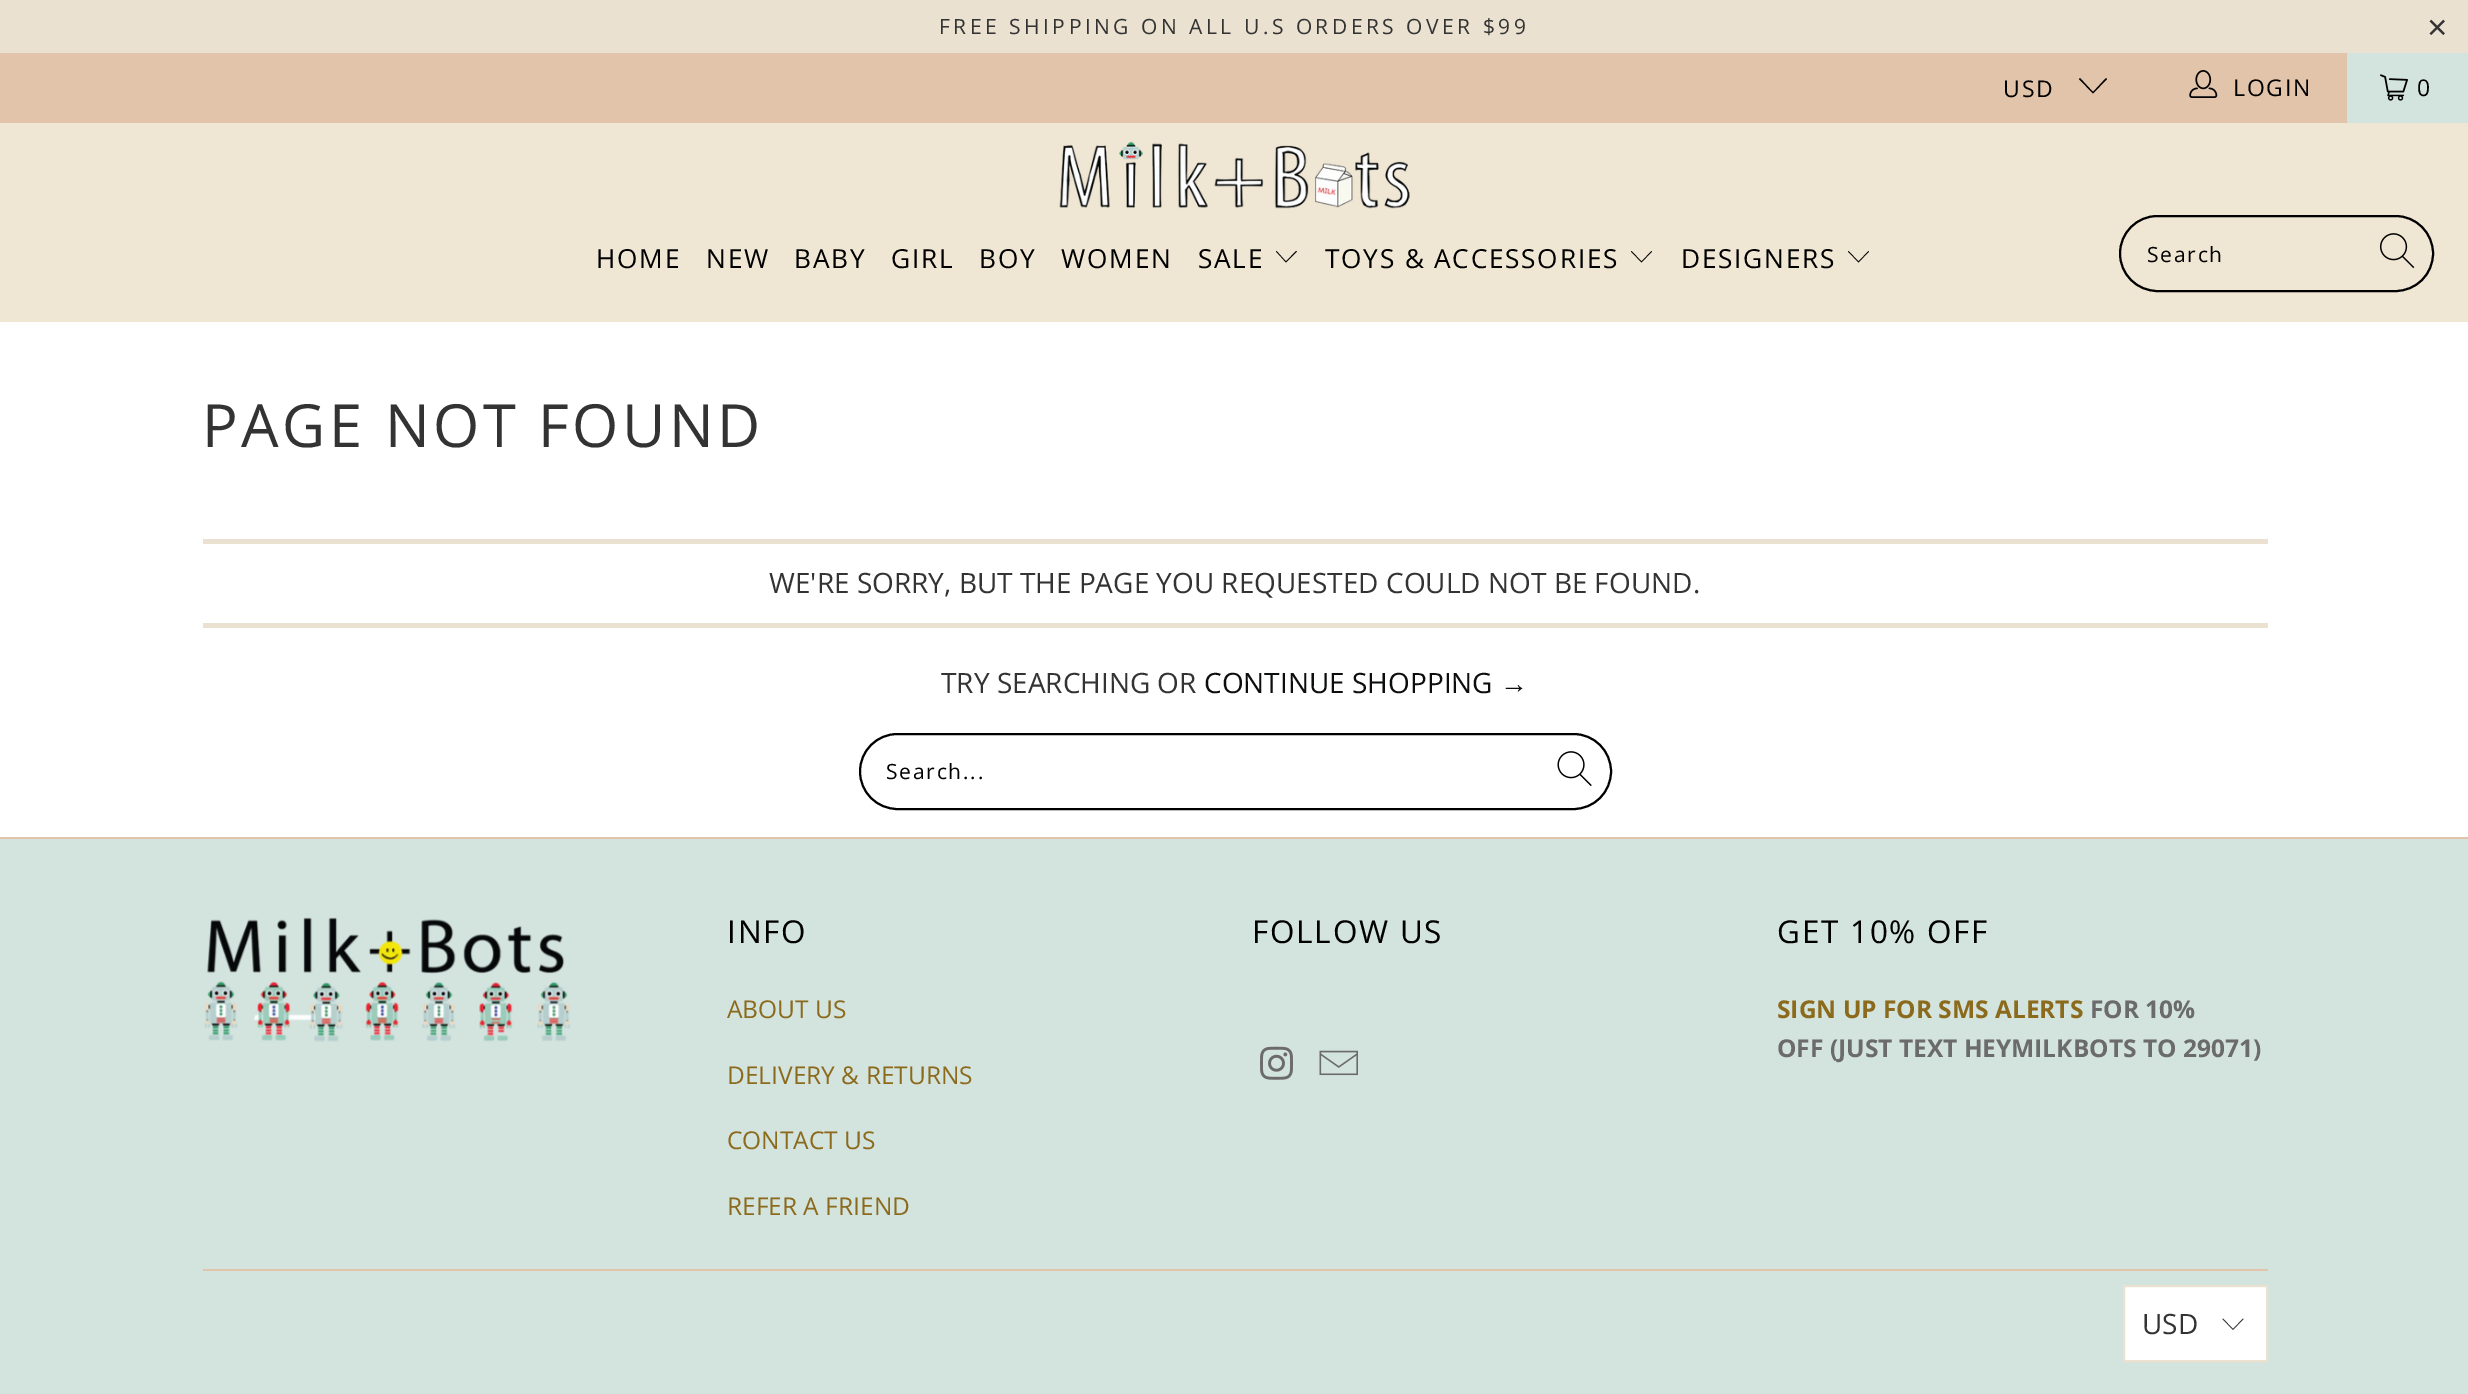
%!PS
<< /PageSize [2468 1394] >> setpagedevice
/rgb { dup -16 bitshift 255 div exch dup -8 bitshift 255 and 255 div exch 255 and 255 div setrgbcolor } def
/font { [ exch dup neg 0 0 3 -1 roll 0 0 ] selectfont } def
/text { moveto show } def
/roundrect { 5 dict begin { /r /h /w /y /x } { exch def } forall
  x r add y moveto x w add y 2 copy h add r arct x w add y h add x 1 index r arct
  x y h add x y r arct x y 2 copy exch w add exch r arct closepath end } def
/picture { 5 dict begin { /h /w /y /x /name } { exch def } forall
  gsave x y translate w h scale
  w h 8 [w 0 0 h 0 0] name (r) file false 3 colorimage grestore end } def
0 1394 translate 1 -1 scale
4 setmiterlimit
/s1 { /OpenSans-Regular 28 font 16#333333 rgb } def
/s2 { /OpenSans-Regular 28 font 16#0C0D0D rgb } def
/s3 { /LiberationSans-Regular 28 font 16#0C0D0D rgb } def
/s4 { /OpenSans-Regular 24.5 font 16#8B6A1B rgb } def
/s5 { /OpenSans-Bold 24.5 font 16#8B6A1B rgb } def
/s6 { /OpenSans-Bold 24.5 font 16#6B6B6B rgb } def
16#FFFFFF rgb
0 0 2468 1394 rectfill
16#EAE1D1 rgb
0 0 2468 53 rectfill
/OpenSans-Regular 21 font
16#333333 rgb
939 34 moveto 3.5 0 (FREE SHIPPING ON ALL U.S ORDERS OVER $99) ashow
/LiberationSans-Regular 35 font
2427 39 moveto 3.5 0 (×) ashow
16#E1C4A9 rgb
0 53 2347 70 rectfill
/OpenSans-Regular 23 font
16#000000 rgb
2003 97 moveto 1.75 0 (USD) ashow
2093 93.5 moveto 2079 79 lineto 2080 78 lineto 2093 92 lineto 2106 78 lineto 2107 79 lineto closepath fill
(pic1.raw) 2189 70 29 28 picture
2233 96 moveto 1.75 0 (LOGIN) ashow
16#D3E3DE rgb
2347 53 121 70 rectfill
(pic2.raw) 2380 74 28 27 picture
16#000000 rgb
2417 96 moveto 1.75 0 (0) ashow
16#EFE6D3 rgb
0 123 2468 199 rectfill
(pic3.raw) 1059 141 351 68 picture
/OpenSans-Regular 26.25 font
16#000000 rgb
596 268 moveto 1.75 0 (HOME) ashow
706 268 moveto 1.75 0 (NEW) ashow
794 268 moveto 1.75 0 (BABY) ashow
891 268 moveto 1.75 0 (GIRL) ashow
979 268 moveto 1.75 0 (BOY) ashow
1061 268 moveto 1.75 0 (WOMEN) ashow
1198 268 moveto 1.75 0 (SALE) ashow
1286 262.5 moveto 1276 251.5 lineto 1276.5 251 lineto 1286 261.5 lineto 1296 251 lineto 1297 251.5 lineto closepath fill
1325 268 moveto 1.75 0 (TOYS & ACCESSORIES) ashow
1641.5 262.5 moveto 1631 251.5 lineto 1631.5 251 lineto 1641.5 261.5 lineto 1651.5 251 lineto 1652 251.5 lineto closepath fill
1681 268 moveto 1.75 0 (DESIGNERS) ashow
1858.5 262.5 moveto 1848 251.5 lineto 1848.5 251 lineto 1858.5 261.5 lineto 1868.5 251 lineto 1869 251.5 lineto closepath fill
2 setlinewidth
2120 216 313 75 37.5 roundrect stroke
/OpenSans-Regular 21 font
2147 262 moveto 1.75 0 (Search) ashow
(pic4.raw) 2379 233 36 36 picture
/OpenSans-Regular 59.5 font
16#333333 rgb
202 447 moveto 3.5 0 (PAGE NOT FOUND) ashow
16#EAE1D1 rgb
203 539 2065 5 rectfill
203 623 2065 5 rectfill
s1
(WE'RE SORRY, BUT THE PAGE YOU REQUESTED COULD NOT BE FOUND.) 769 593 text
(TRY SEARCHING OR) 941 693 text
s2
(CONTINUE SHOPPING) 1204 693 text
s3
(→) 1500 693 text
16#000000 rgb
860 734 751 75 37.5 roundrect stroke
/OpenSans-Regular 21 font
886 779 moveto 1.75 0 (Search...) ashow
(pic5.raw) 1557 751 35 36 picture
16#D3E3DE rgb
0 839 2468 555 rectfill
16#E1C4A9 rgb
0 837 2468 2 rectfill
(pic6.raw) 204 917 367 125 picture
/OpenSans-Regular 31.5 font
16#000000 rgb
727 943 moveto 1.75 0 (INFO) ashow
s4
(ABOUT US) 727 1018 text
(DELIVERY & RETURNS) 727 1084 text
(CONTACT US) 727 1149 text
(REFER A FRIEND) 727 1215 text
/OpenSans-Regular 31.5 font
16#000000 rgb
1252 943 moveto 1.75 0 (FOLLOW US) ashow
(pic7.raw) 1260 1046 33 34 picture
(pic8.raw) 1319 1050 39 26 picture
1777 943 moveto 1.75 0 (GET 10% OFF) ashow
s5
(SIGN UP FOR SMS ALERTS) 1777 1018 text
s6
(FOR 10%) 2090 1018 text
(OFF \(JUST TEXT HEYMILKBOTS TO 29071\)) 1777 1057 text
16#E1C4A9 rgb
203 1269 2065 2 rectfill
16#FFFFFF rgb
2124 1286 moveto 2267 1286 lineto 2267 1361 lineto 2124 1361 lineto closepath gsave fill grestore
16#EAE1D1 rgb
stroke
s1
(USD) 2142 1334 text
2233 1330 moveto 2222.5 1319 lineto 2223 1318.5 lineto 2233 1329 lineto 2243 1318.5 lineto 2243.5 1319 lineto closepath fill
showpage
